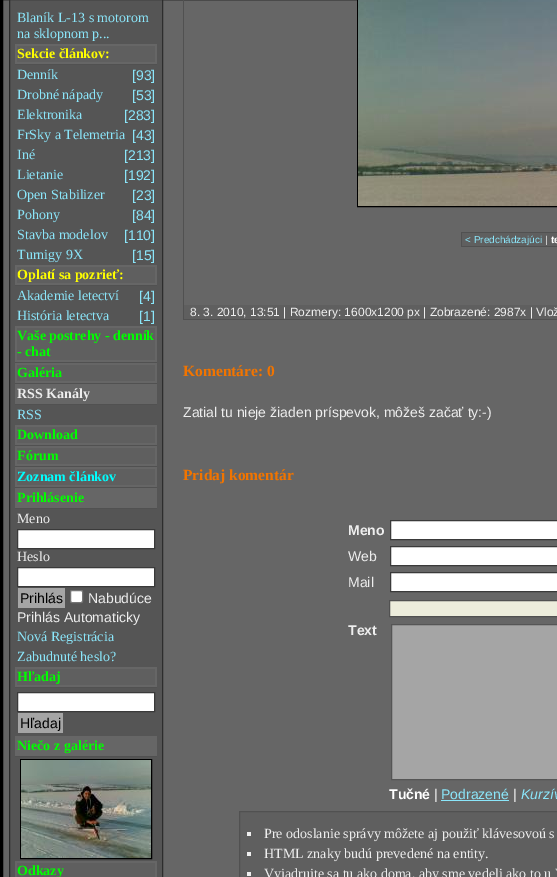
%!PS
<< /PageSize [557 877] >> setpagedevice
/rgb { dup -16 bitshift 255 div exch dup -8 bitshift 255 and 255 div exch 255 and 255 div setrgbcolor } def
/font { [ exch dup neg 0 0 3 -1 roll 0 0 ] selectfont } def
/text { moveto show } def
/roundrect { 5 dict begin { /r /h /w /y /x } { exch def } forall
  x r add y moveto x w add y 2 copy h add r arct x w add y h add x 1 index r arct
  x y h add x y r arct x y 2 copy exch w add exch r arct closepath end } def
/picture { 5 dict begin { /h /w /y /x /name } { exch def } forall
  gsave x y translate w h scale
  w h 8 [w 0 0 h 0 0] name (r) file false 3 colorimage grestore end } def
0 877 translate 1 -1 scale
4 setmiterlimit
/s1 { /LiberationSerif-Regular 14 font 16#8BE6FA rgb } def
/s2 { /LiberationSerif-Bold 14 font 16#FFFF00 rgb } def
/s3 { /LiberationSans-Regular 14 font 16#8BE6FA rgb } def
/s4 { /LiberationSerif-Bold 14 font 16#00FF00 rgb } def
/s5 { /LiberationSerif-Bold 14 font 16#EEEEEE rgb } def
/s6 { /LiberationSerif-Bold 14 font 16#00FFFF rgb } def
/s7 { /LiberationSerif-Regular 14 font 16#EEEEEE rgb } def
/s8 { /LiberationSans-Regular 14 font 16#000000 rgb } def
/s9 { /LiberationSans-Regular 14 font 16#EEEEEE rgb } def
/s10 { /LiberationSans-Regular 10 font 16#8BE6FA rgb } def
/s11 { /LiberationSans-Regular 10 font 16#EEEEEE rgb } def
/s12 { /LiberationSans-Bold 10 font 16#FFFFFF rgb } def
/s13 { /LiberationSans-Regular 12 font 16#EEEEEE rgb } def
/s14 { /LiberationSerif-Bold 15.5 font 16#F17400 rgb } def
/s15 { /LiberationSans-Bold 14 font 16#EEEEEE rgb } def
/s16 { /LiberationSans-Bold 14 font 16#FFFFFF rgb } def
/s17 { /LiberationSans-Italic 14 font 16#8BE6FA rgb } def
16#666666 rgb
0 0 557 877 rectfill
16#000000 rgb
3 setlinewidth
1.5 -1.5 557 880 rectstroke
16#555555 rgb
9.5 -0.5 moveto 162.5 -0.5 lineto 162.5 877.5 lineto 9.5 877.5 lineto closepath gsave fill grestore
16#2D2D2D rgb
1 setlinewidth
stroke
s1
(Blaník L-13 s motorom) 17 22 text
(na sklopnom p...) 17 38 text
16#666666 rgb
15 44 142 20 rectfill
16#515151 rgb
15 64 142 1 rectfill
16#5F5F5F rgb
17 46 138 16 rectfill
s2
(Sekcie článkov:) 17 58 text
s1
(Denník) 17 79 text
s3
([93]) 132 80 text
s1
(Drobné nápady) 17 99 text
s3
([53]) 132 100 text
s1
(Elektronika) 17 119 text
s3
([283]) 124 120 text
s1
(FrSky a Telemetria) 17 139 text
s3
([43]) 132 140 text
s1
(Iné) 17 159 text
s3
([213]) 124 160 text
s1
(Lietanie) 17 179 text
s3
([192]) 124 180 text
s1
(Open Stabilizer) 17 199 text
s3
([23]) 132 200 text
s1
(Pohony) 17 219 text
s3
([84]) 132 220 text
s1
(Stavba modelov) 17 239 text
s3
([110]) 124 240 text
s1
(Turnigy 9X) 17 259 text
s3
([15]) 132 260 text
16#666666 rgb
15 265 142 20 rectfill
16#515151 rgb
15 285 142 1 rectfill
16#5F5F5F rgb
17 267 138 16 rectfill
s2
(Oplatí sa pozrieť:) 17 279 text
s1
(Akademie letectví) 17 300 text
s3
([4]) 139 301 text
s1
(História letectva) 17 320 text
s3
([1]) 139 321 text
16#666666 rgb
15 326 142 36 rectfill
16#515151 rgb
15 362 142 1 rectfill
16#5F5F5F rgb
17 328 138 32 rectfill
s4
(Vaše postrehy - denník) 17 340 text
(- chat) 17 356 text
16#666666 rgb
15 363 142 20 rectfill
16#515151 rgb
15 383 142 1 rectfill
16#5F5F5F rgb
17 365 138 16 rectfill
s4
(Galéria) 17 377 text
16#666666 rgb
15 384 142 20 rectfill
16#515151 rgb
15 404 142 1 rectfill
s5
(RSS Kanály) 17 398 text
s1
(RSS) 17 419 text
16#666666 rgb
15 425 142 20 rectfill
16#515151 rgb
15 445 142 1 rectfill
16#5F5F5F rgb
17 427 138 16 rectfill
s4
(Download) 17 439 text
16#666666 rgb
15 446 142 20 rectfill
16#515151 rgb
15 466 142 1 rectfill
16#5F5F5F rgb
17 448 138 16 rectfill
s4
(Fórum) 17 460 text
16#666666 rgb
15 467 142 20 rectfill
16#515151 rgb
15 487 142 1 rectfill
16#5F5F5F rgb
17 469 138 16 rectfill
s6
(Zoznam článkov) 17 481 text
16#666666 rgb
15 488 142 20 rectfill
16#515151 rgb
15 508 142 1 rectfill
s4
(Prihlásenie) 17 502 text
s7
(Meno) 17 523 text
16#FFFFFF rgb
17.5 529.5 moveto 154.5 529.5 lineto 154.5 548.5 lineto 17.5 548.5 lineto closepath gsave fill grestore
16#3A3A3A rgb
stroke
s7
(Heslo) 17 561 text
16#FFFFFF rgb
17.5 567.5 moveto 154.5 567.5 lineto 154.5 586.5 lineto 17.5 586.5 lineto closepath gsave fill grestore
16#3A3A3A rgb
stroke
16#A5A5A5 rgb
18 588 47 20 rectfill
s8
(Prihlás) 20 603 text
16#FFFFFF rgb
70.5 590.5 12 12 1.5 roundrect gsave fill grestore
16#767676 rgb
stroke
s9
(Nabudúce) 88 603 text
(Prihlás Automaticky) 17 622 text
s1
(Nová Registrácia) 17 641 text
(Zabudnuté heslo?) 17 661 text
16#666666 rgb
15 667 142 20 rectfill
16#515151 rgb
15 687 142 1 rectfill
16#5F5F5F rgb
17 669 138 16 rectfill
s4
(Hľadaj) 17 681 text
16#FFFFFF rgb
17.5 692.5 moveto 154.5 692.5 lineto 154.5 711.5 lineto 17.5 711.5 lineto closepath gsave fill grestore
16#3A3A3A rgb
stroke
16#A5A5A5 rgb
18 713 45 20 rectfill
s8
(Hľadaj) 20 728 text
16#666666 rgb
15 736 142 20 rectfill
16#515151 rgb
15 756 142 1 rectfill
s4
(Niečo z galérie) 17 750 text
16#000000 rgb
20.5 759.5 131 99 rectstroke
(pic1.raw) 21 760 130 98 picture
16#666666 rgb
15 861 142 16 rectfill
16#5F5F5F rgb
17 863 138 14 rectfill
s4
(Odkazy) 17 875 text
16#515151 rgb
183 0 1 305 rectfill
16#000000 rgb
357.5 -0.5 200 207 rectstroke
(pic2.raw) 358 0 199 206 picture
16#5F5F5F rgb
462 233 89 13 rectfill
s10
(< Predchádzajúci) 465 243 text
16#515151 rgb
461 246 90 1 rectfill
461 232 90 1 rectfill
461 232 1 15 rectfill
s11
(|) 545 243 text
16#5F5F5F rgb
551 232 6 15 rectfill
s12
(te) 551 243 text
16#515151 rgb
551 232 6 1 rectfill
551 246 6 1 rectfill
16#5F5F5F rgb
184 305 373 14 rectfill
16#515151 rgb
183 319 374 1 rectfill
183 305 1 15 rectfill
s13
(8. 3. 2010, 13:51 | Rozmery: 1600x1200 px | Zobrazené: 2987x | Vlož) 190 316 text
s14
(Komentáre: 0) 183 376 text
s9
(Zatial tu nieje žiaden príspevok, môžeš začať ty:-\)) 183 417 text
s14
(Pridaj komentár) 183 480 text
s15
(Meno) 348 535 text
16#FFFFFF rgb
390.5 520.5 moveto 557.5 520.5 lineto 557.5 539.5 lineto 390.5 539.5 lineto closepath gsave fill grestore
16#3A3A3A rgb
stroke
s9
(Web) 348 561 text
16#FFFFFF rgb
390.5 546.5 moveto 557.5 546.5 lineto 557.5 565.5 lineto 390.5 565.5 lineto closepath gsave fill grestore
16#3A3A3A rgb
stroke
s9
(Mail) 348 587 text
16#FFFFFF rgb
390.5 572.5 moveto 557.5 572.5 lineto 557.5 591.5 lineto 390.5 591.5 lineto closepath gsave fill grestore
16#3A3A3A rgb
stroke
16#EDEDDC rgb
389.5 600.5 moveto 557.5 600.5 lineto 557.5 616.5 lineto 389.5 616.5 lineto closepath gsave fill grestore
16#515151 rgb
stroke
s15
(Text) 348 635 text
16#A5A5A5 rgb
391.5 624.5 moveto 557.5 624.5 lineto 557.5 779.5 lineto 391.5 779.5 lineto closepath gsave fill grestore
16#555555 rgb
stroke
s16
(Tučné) 389 799 text
s9
(|) 434 799 text
s3
(Podrazené) 441 799 text
441 800 68 1 rectfill
s9
(|) 513 799 text
s17
(Kurzív) 521 799 text
16#5F5F5F rgb
239.5 811.5 moveto 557.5 811.5 lineto 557.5 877.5 lineto 239.5 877.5 lineto closepath gsave fill grestore
16#515151 rgb
stroke
16#EEEEEE rgb
247 832 4 4 rectfill
s7
(Pre odoslanie správy môžete aj použiť klávesovoú s) 264 838 text
247 852 4 4 rectfill
(HTML znaky budú prevedené na entity.) 264 858 text
247 872 4 4 rectfill
(Vyjadrujte sa tu ako doma, aby sme vedeli ako to u V) 264 878 text
showpage
